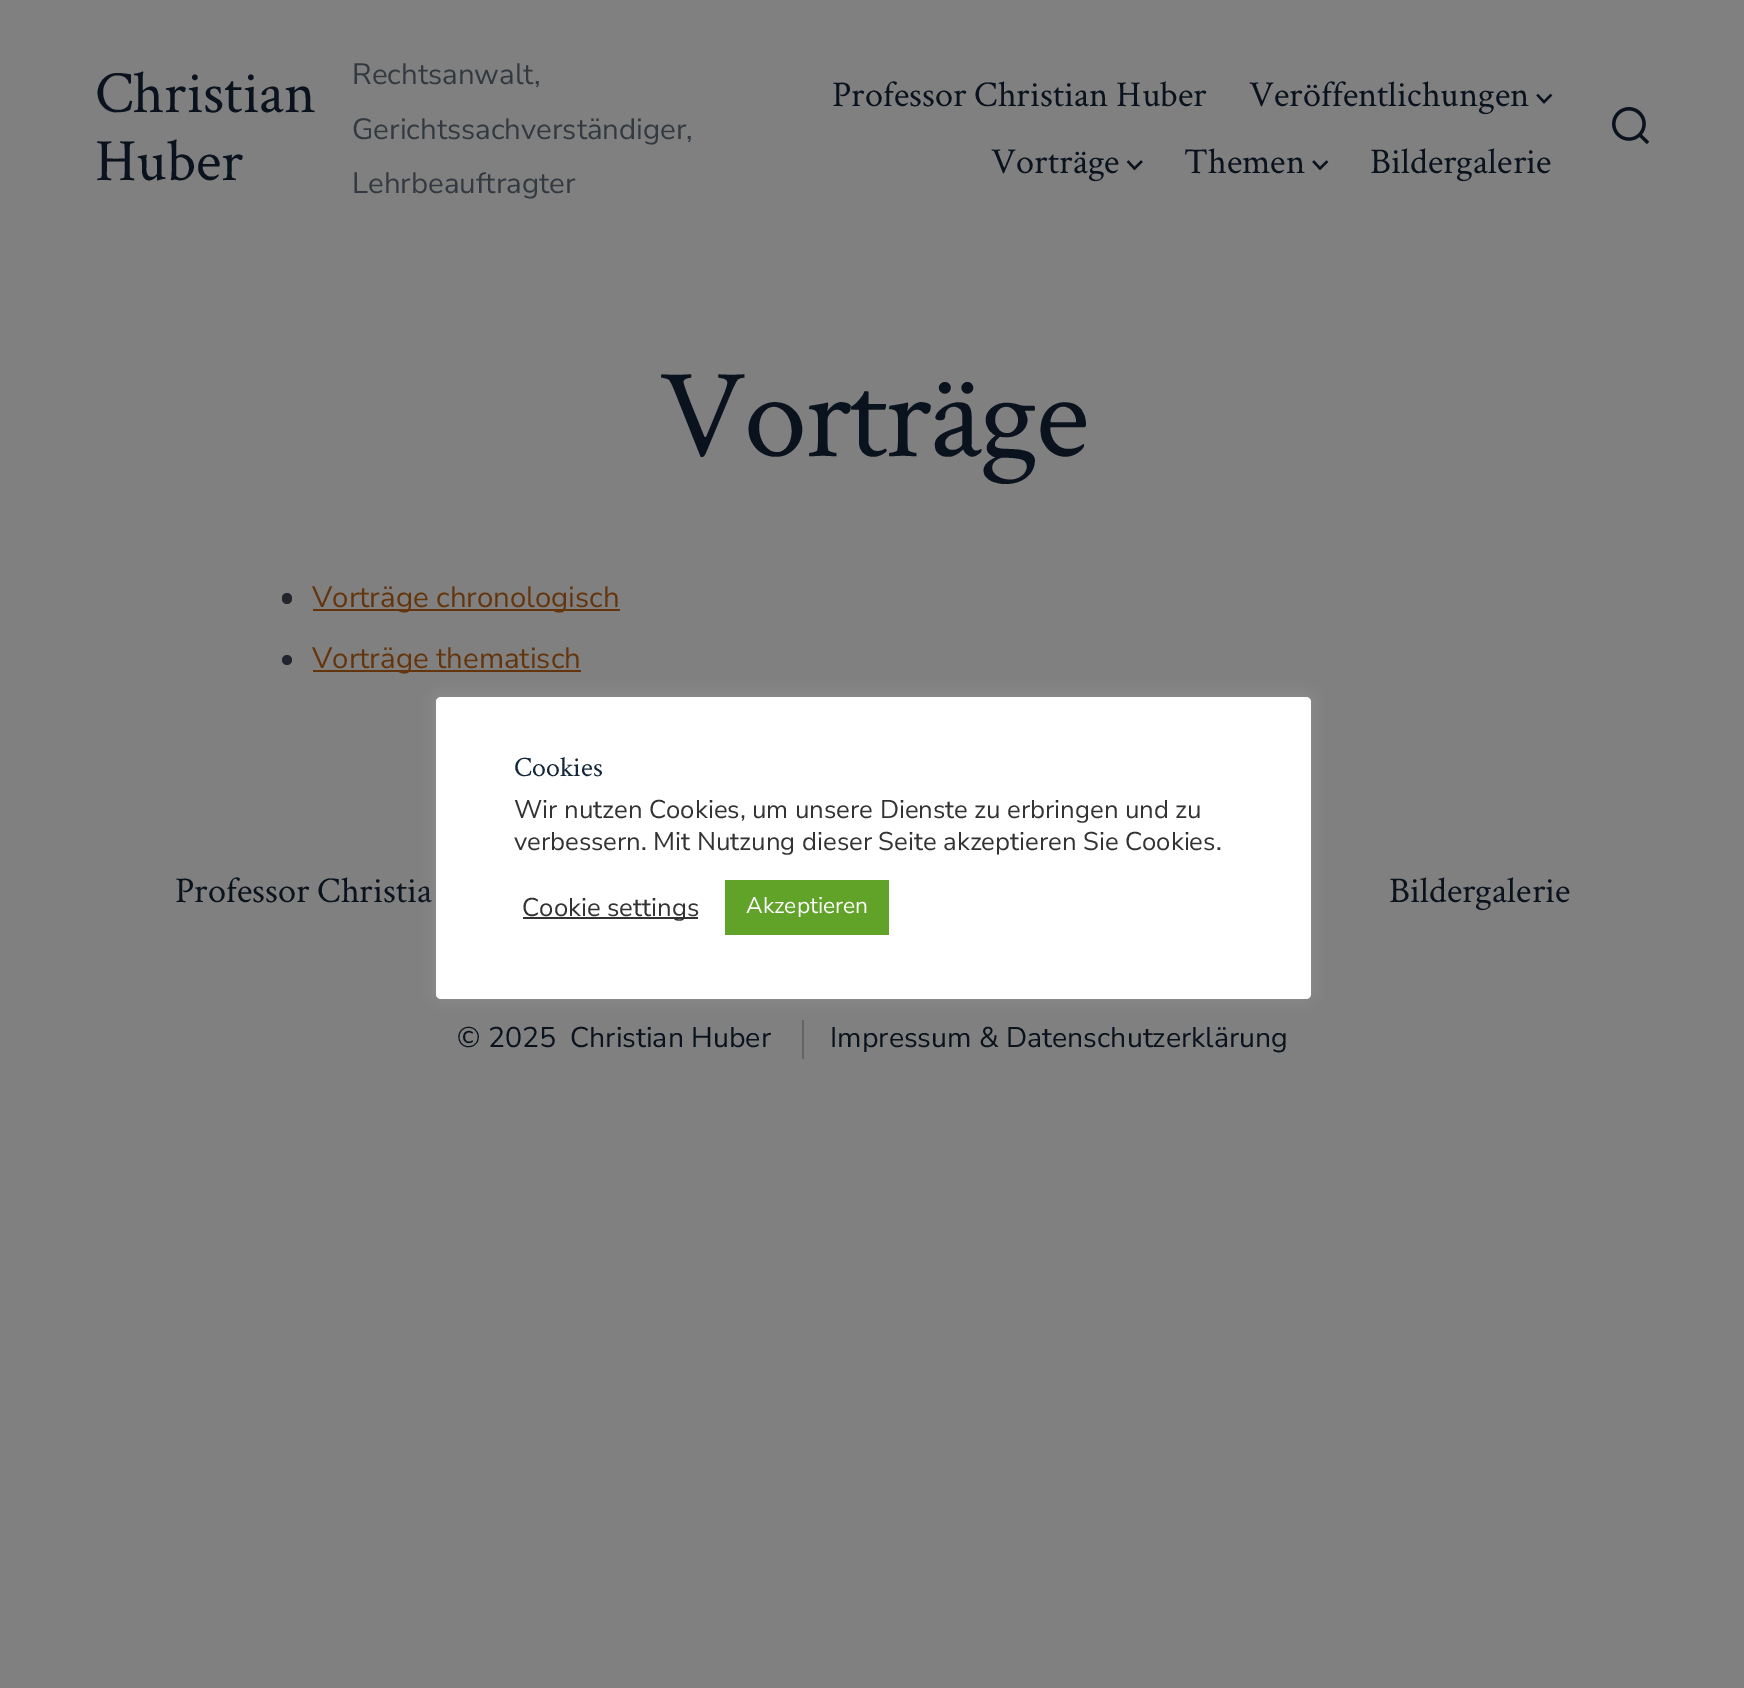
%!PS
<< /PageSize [1744 1688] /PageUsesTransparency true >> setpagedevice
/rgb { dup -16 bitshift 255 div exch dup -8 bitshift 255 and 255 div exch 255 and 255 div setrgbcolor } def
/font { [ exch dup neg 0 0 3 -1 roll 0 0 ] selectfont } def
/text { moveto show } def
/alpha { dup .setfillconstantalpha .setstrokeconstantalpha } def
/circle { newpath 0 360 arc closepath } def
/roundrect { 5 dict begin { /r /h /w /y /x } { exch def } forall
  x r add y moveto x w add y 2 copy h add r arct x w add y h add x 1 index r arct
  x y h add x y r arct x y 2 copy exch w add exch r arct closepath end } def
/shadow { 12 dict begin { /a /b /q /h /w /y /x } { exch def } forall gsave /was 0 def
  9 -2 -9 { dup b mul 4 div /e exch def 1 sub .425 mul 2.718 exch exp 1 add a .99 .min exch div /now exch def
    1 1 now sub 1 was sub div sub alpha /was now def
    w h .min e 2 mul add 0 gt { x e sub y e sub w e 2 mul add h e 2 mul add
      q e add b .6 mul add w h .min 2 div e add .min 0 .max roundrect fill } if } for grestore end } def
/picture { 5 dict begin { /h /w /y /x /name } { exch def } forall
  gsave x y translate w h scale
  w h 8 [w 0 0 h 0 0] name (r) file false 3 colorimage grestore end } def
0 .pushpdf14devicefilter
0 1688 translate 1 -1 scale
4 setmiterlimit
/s1 { /CrimsonText-Regular 60 font 16#0A131D rgb } def
/s2 { /NunitoSans-Regular 29.4 font 16#333940 rgb } def
/s3 { /CrimsonText-Regular 36.4 font 16#0A131D rgb } def
/s4 { /NunitoSans-Regular 29.4 font 16#64350D rgb } def
/s5 { /NunitoSans-Regular 28.5 font 16#0A131D rgb } def
/s6 { /CrimsonText-Regular 28 font 16#13263A rgb } def
/s7 { /NunitoSans-Regular 25.7 font 16#333333 rgb } def
/s8 { /NunitoSans-Regular 22.75 font 16#FFFFFF rgb } def
16#808080 rgb
0 0 1744 1688 rectfill
s1
(Christian) 95 112 text
(Huber) 95 180 text
s2
(Rechtsanwalt,) 352 84 text
(Gerichtssachverständiger,) 352 139 text
(Lehrbeauftragter) 352 193 text
s3
(Professor Christian Huber) 832 106 text
(Veröffentlichungen) 1249 106 text
2.3 setlinewidth
2 setlinecap
1538 95.5 moveto 1544 102 lineto 1550.5 95.5 lineto stroke
(Vorträge) 991 173 text
1128.5 162 moveto 1134.5 168.5 lineto 1141 162 lineto stroke
(Themen) 1184 173 text
1314 162 moveto 1320 168.5 lineto 1326.5 162 lineto stroke
(Bildergalerie) 1370 173 text
(pic1.raw) 1612 107 38 37 picture
/CrimsonText-Regular 126.5 font
659 456 moveto -2.5 0 (Vorträge) ashow
16#22252B rgb
282 593 10 11 5 roundrect fill
16#64350D rgb
313 609 307 2 rectfill
s4
(Vorträge chronologisch) 312 607 text
16#22252B rgb
287 660 5 circle fill
16#64350D rgb
313 670 268 2 rectfill
(Vorträge thematisch) 312 668 text
s3
(Professor Christia) 175 902 text
(Bildergalerie) 1389 902 text
s5
(© 2025) 457 1047 text
(Christian Huber) 570 1047 text
16#626567 rgb
802 1020 2 39 rectfill
s5
(Impressum & Datenschutzerklärung) 830 1047 text
16#ACABAB rgb
436 695 875 303 5 9 0.3 shadow
16#FFFFFF rgb
436 697 875 302 5 roundrect fill
s6
(Cookies) 514 776 text
s7
(Wir nutzen Cookies, um unsere Dienste zu erbringen und zu) 514 818 text
(verbessern. Mit Nutzung dieser Seite akzeptieren Sie Cookies.) 514 850 text
523 917 175 2 rectfill
(Cookie settings) 522 916 text
16#61A229 rgb
725 880 164 55 rectfill
s8
(Akzeptieren) 746 913 text
.poppdf14devicefilter showpage
